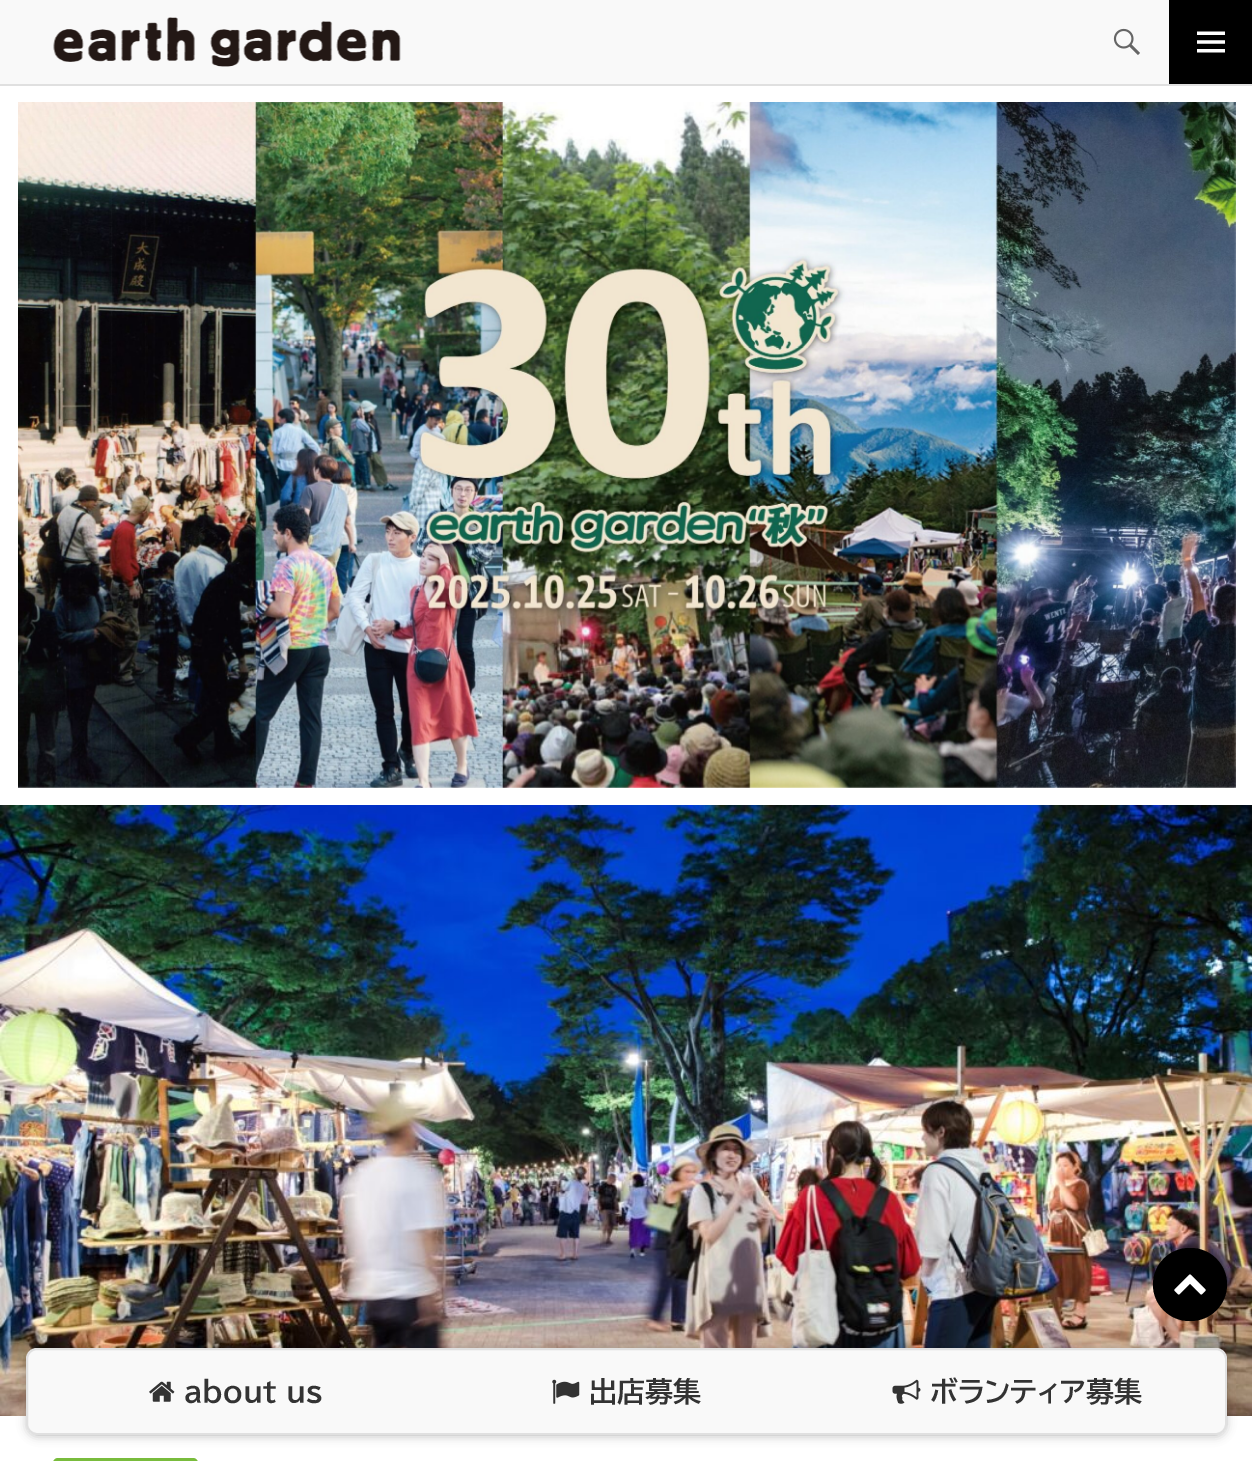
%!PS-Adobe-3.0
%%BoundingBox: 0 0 1252 1461
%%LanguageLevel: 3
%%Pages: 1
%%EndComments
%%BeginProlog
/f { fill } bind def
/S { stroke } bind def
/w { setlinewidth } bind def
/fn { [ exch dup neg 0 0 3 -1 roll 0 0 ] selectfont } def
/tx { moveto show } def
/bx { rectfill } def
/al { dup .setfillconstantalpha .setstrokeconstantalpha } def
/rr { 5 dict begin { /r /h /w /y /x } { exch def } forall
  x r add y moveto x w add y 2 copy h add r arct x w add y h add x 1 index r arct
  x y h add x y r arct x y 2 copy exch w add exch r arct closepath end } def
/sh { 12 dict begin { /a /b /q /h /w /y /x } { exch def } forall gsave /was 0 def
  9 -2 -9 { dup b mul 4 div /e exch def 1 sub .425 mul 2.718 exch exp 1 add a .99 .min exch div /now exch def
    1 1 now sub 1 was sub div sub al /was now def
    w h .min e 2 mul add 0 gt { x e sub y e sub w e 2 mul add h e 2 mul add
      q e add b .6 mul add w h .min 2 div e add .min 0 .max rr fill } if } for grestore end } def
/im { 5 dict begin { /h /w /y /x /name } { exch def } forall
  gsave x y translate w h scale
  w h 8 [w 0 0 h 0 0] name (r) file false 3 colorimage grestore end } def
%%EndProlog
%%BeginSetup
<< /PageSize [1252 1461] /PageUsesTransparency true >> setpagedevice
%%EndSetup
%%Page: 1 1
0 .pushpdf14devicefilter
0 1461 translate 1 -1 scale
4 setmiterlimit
1 setgray
0 0 1252 1461 bx
0.976 setgray
0 0 1169 84 bx
0.878 setgray
0 84 1252 2 bx
(image0.raw) 53 17 348 50 im
(image1.raw) 1113 28 27 27 im
0 setgray
1169 0 83 84 bx
(image2.raw) 1197 31 28 22 im
(image3.raw) 18 102 1218 686 im
(image4.raw) 0 805 1252 611 im
0.475 0.737 0.235 setrgbcolor
53 1458 145 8 5 rr f
0 setgray
1153 1248 74 73 36.5 rr f
0.1 al
2 w
1154 1249 72 71 35.5 rr S
1 al
(image5.raw) 1174 1274 32 21 im
26 1349 1201 88 11 4.5 0.2 sh
0.976 setgray
26 1348 1201 87 11 rr f
0.1 al
0 setgray
27 1349 1199 85 10 rr S
1 al
(image6.raw) 149 1381 26 21 im
/BIZUDPGothic-Bold 28 fn
0.2 setgray
(about us) 184 1402 tx
(image7.raw) 552 1379 28 25 im
(出店募集) 589 1402 tx
(image8.raw) 892 1379 29 25 im
(ボランティア募集) 930 1402 tx
.poppdf14devicefilter showpage
%%EOF
